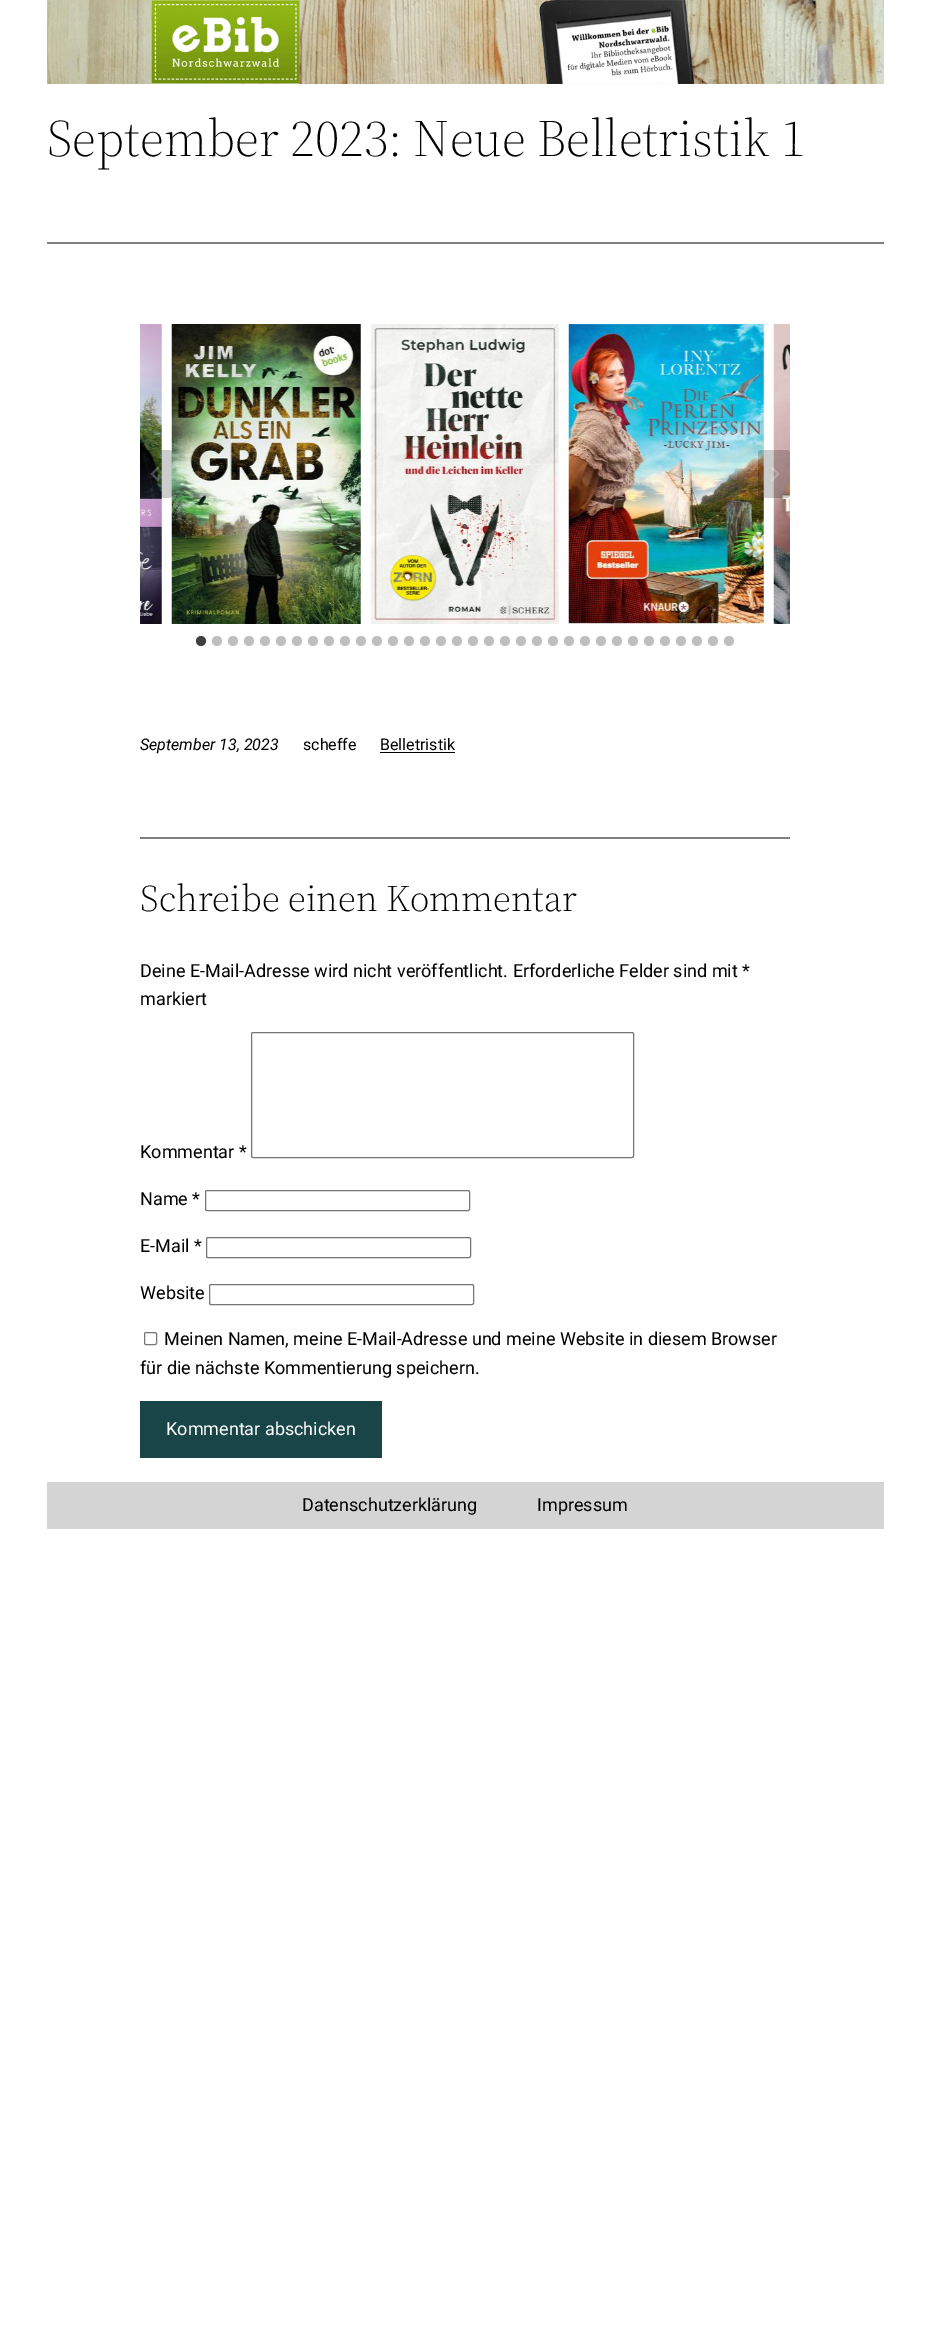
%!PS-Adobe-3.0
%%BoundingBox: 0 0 930 2333
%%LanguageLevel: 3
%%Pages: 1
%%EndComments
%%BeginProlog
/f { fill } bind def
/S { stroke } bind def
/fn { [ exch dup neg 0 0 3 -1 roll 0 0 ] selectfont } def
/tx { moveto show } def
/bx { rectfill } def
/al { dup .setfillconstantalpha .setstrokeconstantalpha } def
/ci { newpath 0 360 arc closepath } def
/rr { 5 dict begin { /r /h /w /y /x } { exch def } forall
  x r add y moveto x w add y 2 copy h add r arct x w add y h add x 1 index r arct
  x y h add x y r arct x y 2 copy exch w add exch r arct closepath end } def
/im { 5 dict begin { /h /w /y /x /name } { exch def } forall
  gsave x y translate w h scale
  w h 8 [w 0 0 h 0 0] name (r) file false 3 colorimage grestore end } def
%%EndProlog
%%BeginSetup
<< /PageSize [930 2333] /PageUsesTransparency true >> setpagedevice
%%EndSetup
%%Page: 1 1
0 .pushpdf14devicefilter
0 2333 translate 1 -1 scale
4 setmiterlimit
1 setgray
0 0 930 2333 bx
(image0.raw) 47 0 837 84 im
/SourceSerif4-Light 52 fn
0 setgray
(September 2023: Neue Belletristik 1) 47 156 tx
0.502 setgray
47 242 837 2 bx
(image1.raw) 140 324 22 300 im
(image2.raw) 171 324 190 300 im
(image3.raw) 370 324 189 300 im
(image4.raw) 568 324 196 300 im
(image5.raw) 773 324 17 300 im
0.2 al
0 setgray
140 450 32 48 3 rr f
1 al
(image6.raw) 150 466 10 16 im
0.2 al
758 450 32 48 3 rr f
1 al
(image7.raw) 771 467 9 14 im
0.251 setgray
201 641 5 ci f
0.749 setgray
217 641 5 ci f
233 641 5 ci f
249 641 5 ci f
265 641 5 ci f
281 641 5 ci f
297 641 5 ci f
313 641 5 ci f
329 641 5 ci f
345 641 5 ci f
361 641 5 ci f
377 641 5 ci f
393 641 5 ci f
409 641 5 ci f
425 641 5 ci f
441 641 5 ci f
457 641 5 ci f
473 641 5 ci f
489 641 5 ci f
505 641 5 ci f
521 641 5 ci f
537 641 5 ci f
553 641 5 ci f
569 641 5 ci f
585 641 5 ci f
601 641 5 ci f
617 641 5 ci f
633 641 5 ci f
649 641 5 ci f
665 641 5 ci f
681 641 5 ci f
697 641 5 ci f
713 641 5 ci f
729 641 5 ci f
/Roboto-Italic 16 fn
0 setgray
(September 13, 2023) 140 750 tx
/Roboto-Regular 16 fn
(scheffe) 303 750 tx
(Belletristik) 380 750 tx
380 752 75 1 bx
0.502 setgray
140 837 650 2 bx
/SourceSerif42-Light 37.25 fn
0 setgray
(Schreibe einen Kommentar) 140 911 tx
/Roboto-Regular 18 fn
(Deine E-Mail-Adresse wird nicht veröffentlicht. Erforderliche Felder sind mit *) 140 977 tx
(markiert) 140 1005 tx
(Kommentar *) 140 1158 tx
0.463 setgray
251.5 1032.5 382 125 1.5 rr S
0 setgray
(Name *) 140 1205 tx
0.463 setgray
205.5 1190.5 264 20 1.5 rr S
0 setgray
(E-Mail *) 140 1252 tx
0.463 setgray
206.5 1237.5 264 20 1.5 rr S
0 setgray
(Website) 140 1299 tx
0.463 setgray
209.5 1284.5 264 20 1.5 rr S
144.5 1332.5 12 12 1.5 rr S
0 setgray
(Meinen Namen, meine E-Mail-Adresse und meine Website in diesem Browser) 164 1345 tx
(für die nächste Kommentierung speichern.) 140 1374 tx
0.102 0.271 0.282 setrgbcolor
140 1401 242 57 bx
1 setgray
(Kommentar abschicken) 166 1435 tx
0.831 setgray
47 1482 837 47 bx
0 setgray
(Datenschutzerklärung) 302 1511 tx
(Impressum) 537 1511 tx
.poppdf14devicefilter showpage
%%EOF
